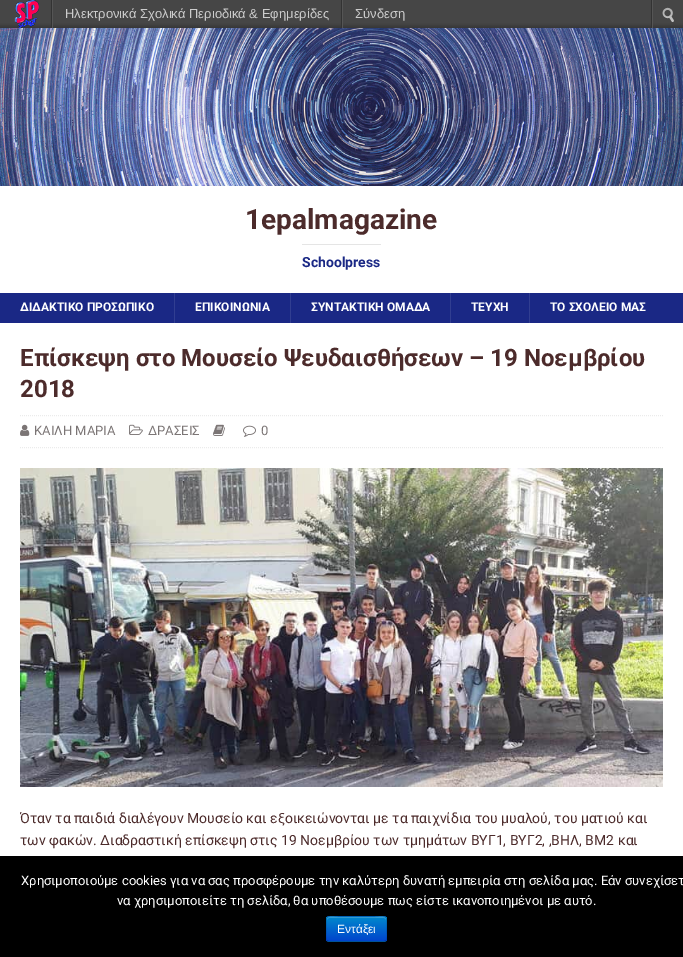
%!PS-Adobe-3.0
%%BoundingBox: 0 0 683 957
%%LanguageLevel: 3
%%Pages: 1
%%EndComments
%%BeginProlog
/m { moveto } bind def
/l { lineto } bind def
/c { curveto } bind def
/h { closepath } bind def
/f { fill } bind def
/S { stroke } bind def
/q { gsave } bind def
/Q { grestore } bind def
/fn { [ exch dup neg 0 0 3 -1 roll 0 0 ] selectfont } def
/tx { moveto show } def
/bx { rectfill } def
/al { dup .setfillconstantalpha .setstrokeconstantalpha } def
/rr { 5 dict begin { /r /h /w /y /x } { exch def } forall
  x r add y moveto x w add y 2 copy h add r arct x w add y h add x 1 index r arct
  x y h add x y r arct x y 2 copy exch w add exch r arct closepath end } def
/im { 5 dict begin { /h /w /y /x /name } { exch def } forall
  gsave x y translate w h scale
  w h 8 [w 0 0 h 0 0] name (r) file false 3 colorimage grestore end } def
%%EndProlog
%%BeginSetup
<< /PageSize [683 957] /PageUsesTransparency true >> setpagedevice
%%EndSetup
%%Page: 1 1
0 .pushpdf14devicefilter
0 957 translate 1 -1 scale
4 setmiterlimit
1 setgray
0 0 683 957 bx
q 0 0 m 651 0 l 651 28 l 0 28 l h clip newpath
<< /ShadingType 2 /ColorSpace /DeviceRGB /Coords [342 28 342 0] /Extend [true true] /Function << /FunctionType 3 /Domain [0 1] /Functions [<< /FunctionType 2 /Domain [0 1] /C0 [0.216 0.216 0.216] /C1 [0.275 0.275 0.275] /N 1 >> << /FunctionType 2 /Domain [0 1] /C0 [0.275 0.275 0.275] /C1 [0.275 0.275 0.275] /N 1 >>] /Bounds [0.18] /Encode [0 1 0 1] >> >> shfill Q
0.333 setgray
52 0 1 28 bx
0.2 setgray
51 0 1 28 bx
(image0.raw) 14 0 25 28 im
0.333 setgray
342 0 1 28 bx
0.2 setgray
341 0 1 28 bx
/LiberationSans-Regular 13 fn
0.8 setgray
(Ηλεκτρονικά Σχολικά Περιοδικά & Εφημερίδες) 65 18 tx
(Σύνδεση) 355 18 tx
q 653 0 m 683 0 l 683 28 l 653 28 l h clip newpath
<< /ShadingType 2 /ColorSpace /DeviceRGB /Coords [667 28 667 0] /Extend [true true] /Function << /FunctionType 3 /Domain [0 1] /Functions [<< /FunctionType 2 /Domain [0 1] /C0 [0.216 0.216 0.216] /C1 [0.275 0.275 0.275] /N 1 >> << /FunctionType 2 /Domain [0 1] /C0 [0.275 0.275 0.275] /C1 [0.275 0.275 0.275] /N 1 >>] /Bounds [0.18] /Encode [0 1 0 1] >> >> shfill Q
0.2 setgray
651 0 1 28 bx
0.333 setgray
652 0 1 28 bx
(image1.raw) 662 7 12 15 im
(image2.raw) 0 28 683 158 im
/Roboto-Bold 28 fn
0.298 0.169 0.169 setrgbcolor
(1epalmagazine) 245 229 tx
0.898 setgray
302 244 79 1 bx
/Roboto-Bold 14 fn
0.102 0.157 0.522 setrgbcolor
(Schoolpress) 302 267 tx
0 293 683 30 bx
/Roboto-Bold 12 fn
1 setgray
(ΔΙΔΑΚΤΙΚΟ ΠΡΟΣΩΠΙΚΟ) 20 311 tx
0.192 0.243 0.569 setrgbcolor
174 293 1 30 bx
1 setgray
(ΕΠΙΚΟΙΝΩΝΙΑ) 195 311 tx
0.192 0.243 0.569 setrgbcolor
290 293 1 30 bx
1 setgray
(ΣΥΝΤΑΚΤΙΚΗ ΟΜΑΔΑ) 311 311 tx
0.192 0.243 0.569 setrgbcolor
450 293 1 30 bx
1 setgray
(ΤΕΥΧΗ) 471 311 tx
0.192 0.243 0.569 setrgbcolor
529 293 1 30 bx
1 setgray
(ΤΟ ΣΧΟΛΕΙΟ ΜΑΣ) 550 311 tx
/Roboto-Bold 24 fn
0.298 0.169 0.169 setrgbcolor
(Επίσκεψη στο Μουσείο Ψευδαισθήσεων – 19 Νοεμβρίου) 20 366 tx
(2018) 20 397 tx
0.922 setgray
[1 1] 0 setdash
20 415.5 m 663 415.5 l S
20 447.5 m 663 447.5 l S
(image3.raw) 20 424 10 12 im
/Roboto-Regular 13 fn
0.482 0.459 0.459 setrgbcolor
(ΚΑΙΛΗ ΜΑΡΙΑ) 34 435 tx
(image4.raw) 129 424 14 11 im
(ΔΡΑΣΕΙΣ) 148 435 tx
(image5.raw) 213 424 12 12 im
(image6.raw) 243 425 13 12 im
(0) 261 435 tx
(image7.raw) 20 468 643 319 im
/Roboto-Regular 14 fn
0.298 0.169 0.169 setrgbcolor
(Όταν τα παιδιά διαλέγουν Μουσείο και εξοικειώνονται με τα παιχνίδια του μυαλού, του ματιού και) 20 823 tx
(των φακών. Διαδραστική επίσκεψη στις 19 Νοεμβρίου των τμημάτων ΒΥΓ1, ΒΥΓ2, ,ΒΗΛ, ΒΜ2 και) 20 845 tx
0 setgray
0 856 683 101 bx
/Roboto-Regular 13 fn
1 setgray
(Χρησιμοποιούμε cookies για να σας προσφέρουμε την καλύτερη δυνατή εμπειρία στη σελίδα μας. Εάν συνεχίσετ) 21 885 tx
(να χρησιμοποιείτε τη σελίδα, θα υποθέσουμε πως είστε ικανοποιημένοι με αυτό.) 117 905 tx
0 0.427 0.8 setrgbcolor
326 916 61 26 3 rr f
q
326 916 61 26 3 rr clip newpath
q 326 917 m 387 917 l 387 941 l 326 941 l h clip newpath
<< /ShadingType 2 /ColorSpace /DeviceRGB /Coords [357 917 357 941] /Extend [true true] /Function << /FunctionType 2 /Domain [0 1] /C0 [0 0.533 0.8] /C1 [0 0.267 0.8] /N 1 >> >> shfill Q
Q
0.2 0.624 0.839 setrgbcolor
329 918 m 384 918 l 385 918 386 919 386 920 c 386 915 379 917 375 917 c 338 917 l 334 917 327 915 327 920 c 327 919 328 918 329 918 c h f
0.25 al
0 setgray
[] 0 setdash
386 941 m 384 941.5 l 329 941.5 l 327 941 l S
0.1 al
327 941 m 325.5 939 326.5 931.5 326.5 929 c 326.5 915 324 916.5 338 916.5 c 375 916.5 l 389 916.5 386.5 915 386.5 929 c 386.5 931.5 387.5 939 386 941 c S
/LiberationSans-Regular 12 fn
1 al
1 setgray
(Εντάξει) 337 933 tx
.poppdf14devicefilter showpage
%%EOF
